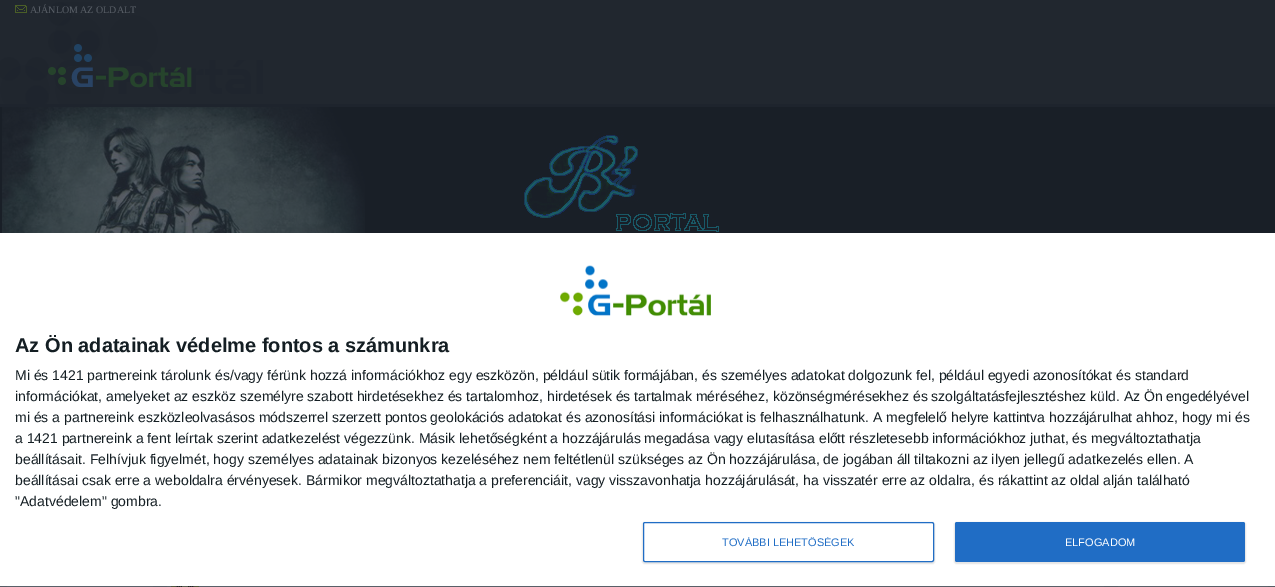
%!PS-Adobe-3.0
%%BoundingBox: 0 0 1275 587
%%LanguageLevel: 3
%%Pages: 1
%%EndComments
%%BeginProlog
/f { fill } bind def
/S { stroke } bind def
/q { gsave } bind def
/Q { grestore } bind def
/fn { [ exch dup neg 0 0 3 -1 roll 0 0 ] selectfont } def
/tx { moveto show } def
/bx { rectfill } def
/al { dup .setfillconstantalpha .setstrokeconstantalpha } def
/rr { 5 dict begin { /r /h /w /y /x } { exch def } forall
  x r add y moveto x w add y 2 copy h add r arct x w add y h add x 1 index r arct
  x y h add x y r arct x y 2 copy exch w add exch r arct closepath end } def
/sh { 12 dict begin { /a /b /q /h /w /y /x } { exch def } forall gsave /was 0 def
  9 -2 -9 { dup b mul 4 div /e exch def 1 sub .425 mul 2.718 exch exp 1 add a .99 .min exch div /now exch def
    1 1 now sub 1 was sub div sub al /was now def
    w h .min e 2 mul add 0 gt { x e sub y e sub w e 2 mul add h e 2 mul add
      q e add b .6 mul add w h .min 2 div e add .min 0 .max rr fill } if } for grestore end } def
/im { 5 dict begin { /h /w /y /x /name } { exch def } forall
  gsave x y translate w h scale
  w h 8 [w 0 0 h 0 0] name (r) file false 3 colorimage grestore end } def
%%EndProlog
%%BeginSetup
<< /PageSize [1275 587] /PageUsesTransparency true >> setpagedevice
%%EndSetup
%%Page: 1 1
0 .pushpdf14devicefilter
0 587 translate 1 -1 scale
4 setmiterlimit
0.333 0.357 0.388 setrgbcolor
0 0 1275 587 bx
0.129 0.153 0.184 setrgbcolor
0 0 1275 104 bx
0.118 0.141 0.176 setrgbcolor
0 104 1275 3 bx
(image0.raw) 0 2 263 102 im
(image1.raw) 15 5 12 8 im
/LiberationSerif-Regular 10 fn
0.349 0.373 0.404 setrgbcolor
(AJÁNLOM AZ OLDALT) 30 13 tx
0.098 0.122 0.153 setrgbcolor
0 107 1275 126 bx
(image2.raw) 2 107 718 126 im
0.349 0.373 0.404 setrgbcolor
7 586 146 1 bx
167 586 937 1 bx
(image3.raw) 171 586 28 1 im
1118 586 150 1 bx
1 setgray
0 233 1275 353 bx
(image4.raw) 560 265 151 52 im
/LiberationSans-Bold 20 fn
0.078 0.118 0.137 setrgbcolor
(Az Ön adatainak védelme fontos a számunkra) 15 352 tx
/LiberationSans-Regular 14 fn
(Mi és 1421 partnereink tárolunk és/vagy férünk hozzá információkhoz egy eszközön, például sütik formájában, és személyes adatokat dolgozunk fel, például egyedi azonosítókat és standard) 15 380 tx
(információkat, amelyeket az eszköz személyre szabott hirdetésekhez és tartalomhoz, hirdetések és tartalmak méréséhez, közönségmérésekhez és szolgáltatásfejlesztéshez küld. Az Ön engedélyével) 15 401 tx
(mi és a partnereink eszközleolvasásos módszerrel szerzett pontos geolokációs adatokat és azonosítási információkat is felhasználhatunk. A megfelelő helyre kattintva hozzájárulhat ahhoz, hogy mi és) 15 422 tx
(a 1421 partnereink a fent leírtak szerint adatkezelést végezzünk. Másik lehetőségként a hozzájárulás megadása vagy elutasítása előtt részletesebb információkhoz juthat, és megváltoztathatja) 15 443 tx
(beállításait. Felhívjuk figyelmét, hogy személyes adatainak bizonyos kezeléséhez nem feltétlenül szükséges az Ön hozzájárulása, de jogában áll tiltakozni az ilyen jellegű adatkezelés ellen. A) 15 464 tx
(beállításai csak erre a weboldalra érvényesek. Bármikor megváltoztathatja a preferenciáit, vagy visszavonhatja hozzájárulását, ha visszatér erre az oldalra, és rákattint az oldal alján található) 15 485 tx
("Adatvédelem" gombra.) 15 506 tx
0 setgray
642 522 293 42 3 0.5 0.1 sh
1 setgray
643.5 522.5 290 39 1.5 rr q f Q
0.125 0.427 0.773 setrgbcolor
S
q
722 537 133 11 rectclip
/LiberationSans-Regular 11 fn
(TOVÁBBI LEHETŐSÉGEK) 722 546 tx
Q
0 setgray
954 522 292 42 3 0.5 0.1 sh
0.125 0.427 0.773 setrgbcolor
955 522 290 40 2 rr f
/LiberationSans-Regular 11 fn
1 setgray
(ELFOGADOM) 1065 546 tx
.poppdf14devicefilter showpage
%%EOF
